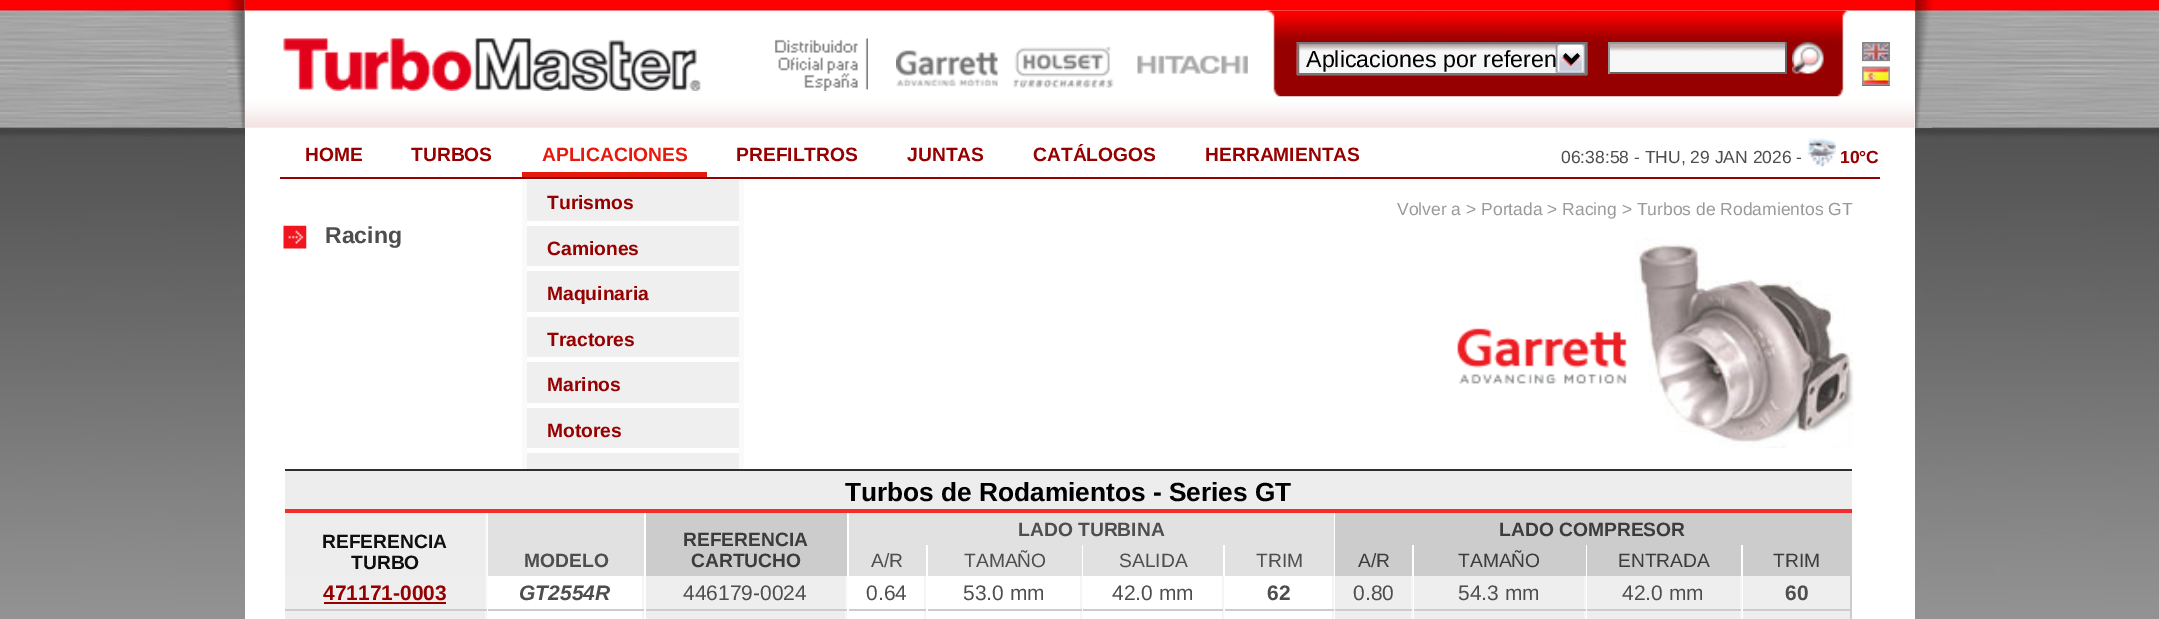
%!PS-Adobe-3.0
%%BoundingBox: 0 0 2159 619
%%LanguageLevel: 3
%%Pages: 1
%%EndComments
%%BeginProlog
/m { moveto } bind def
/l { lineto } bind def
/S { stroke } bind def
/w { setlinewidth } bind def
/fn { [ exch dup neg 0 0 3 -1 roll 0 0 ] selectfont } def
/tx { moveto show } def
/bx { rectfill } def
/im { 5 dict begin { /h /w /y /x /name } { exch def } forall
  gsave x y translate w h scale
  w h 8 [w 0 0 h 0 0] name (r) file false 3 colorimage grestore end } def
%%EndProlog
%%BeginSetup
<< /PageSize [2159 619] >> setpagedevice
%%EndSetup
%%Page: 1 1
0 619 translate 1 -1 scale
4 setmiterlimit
1 setgray
0 0 2159 619 bx
(image0.raw) 0 0 2159 619 im
(image1.raw) 227 0 1705 128 im
245 11 1670 608 bx
1 0 0 setrgbcolor
245 0 1670 11 bx
(image2.raw) 245 10 1670 118 im
(image3.raw) 283 38 418 53 im
(image4.raw) 775 38 93 53 im
(image5.raw) 896 50 102 37 im
(image6.raw) 1013 46 101 42 im
(image7.raw) 1137 55 111 19 im
(image8.raw) 1265 10 584 87 im
(image9.raw) 1296 42 292 34 im
0.463 setgray
2 w
1298 43 288 31 rectstroke
0 setgray
3.5 w
1564.5 55 m 1571.5 62 l 1578.5 55 l S
/LiberationSans-Regular 23.25 fn
(Aplicaciones por referen) 1306 67 tx
(image10.raw) 1610 44 175 28 im
0.6 setgray
1608 42 179 2 bx
0.4 setgray
1785 42 2 32 bx
1608 72 179 2 bx
0.6 setgray
1608 42 2 32 bx
(image11.raw) 1792 42 32 32 im
0.4 setgray
1862 42 28 19 bx
(image12.raw) 1862 42 28 20 im
(image13.raw) 1862 66 28 20 im
0.592 0 0 setrgbcolor
280 177 1600 2 bx
/LiberationSans-Bold 19.25 fn
(HOME) 305 161 tx
(TURBOS) 411 161 tx
0.902 0.098 0.051 setrgbcolor
522 172 185 5 bx
(APLICACIONES) 542 161 tx
0.937 setgray
527 180 212 41 bx
0.98 setgray
739 180 5 289 bx
522 180 5 289 bx
0.592 0 0 setrgbcolor
(Turismos) 547 209 tx
0.937 setgray
527 226 212 40 bx
0.592 0 0 setrgbcolor
(Camiones) 547 255 tx
0.937 setgray
527 271 212 41 bx
0.592 0 0 setrgbcolor
(Maquinaria) 547 300 tx
0.937 setgray
527 317 212 40 bx
0.592 0 0 setrgbcolor
(Tractores) 547 346 tx
0.937 setgray
527 362 212 41 bx
0.592 0 0 setrgbcolor
(Marinos) 547 391 tx
0.937 setgray
527 408 212 40 bx
0.592 0 0 setrgbcolor
(Motores) 547 437 tx
0.937 setgray
527 453 212 16 bx
0.592 0 0 setrgbcolor
(PREFILTROS) 736 161 tx
(JUNTAS) 907 161 tx
(CATÁLOGOS) 1033 161 tx
(HERRAMIENTAS) 1205 161 tx
/LiberationSans-Regular 17.5 fn
0.306 setgray
(06:38:58 - THU, 29 JAN 2026 -) 1561 163 tx
(image14.raw) 1807 138 29 29 im
/LiberationSans-Bold 17.5 fn
0.592 0 0 setrgbcolor
(10°C) 1840 163 tx
/LiberationSans-Regular 17.5 fn
0.6 setgray
(Volver a > Portada > Racing > Turbos de Rodamientos GT) 1397 215 tx
(image15.raw) 1457 328 170 56 im
(image16.raw) 1635 238 219 210 im
(image17.raw) 283 225 24 24 im
/LiberationSans-Bold 23 fn
0.306 setgray
(Racing) 325 243 tx
0.929 setgray
285 471 1567 38 bx
0.184 setgray
285 469 1567 2 bx
0.957 0.173 0.173 setrgbcolor
285 509 1567 4 bx
/LiberationSans-Bold 26.25 fn
0 setgray
(Turbos de Rodamientos - Series GT) 845 501 tx
0.882 setgray
849 513 485 32 bx
/LiberationSans-Bold 19.25 fn
0.306 setgray
(LADO TURBINA) 1018 536 tx
0.8 setgray
1335 513 517 32 bx
0.235 setgray
(LADO COMPRESOR) 1499 536 tx
0.929 setgray
285 513 200 63 bx
0.961 setgray
485 513 2 98 bx
0.059 setgray
(REFERENCIA) 322 548 tx
(TURBO) 351 569 tx
0.882 setgray
488 513 156 63 bx
0.306 setgray
(MODELO) 524 567 tx
0.8 setgray
646 513 201 63 bx
0.235 setgray
(REFERENCIA) 683 546 tx
(CARTUCHO) 691 567 tx
0.882 setgray
849 545 77 31 bx
/LiberationSans-Regular 19.25 fn
0.306 setgray
(A/R) 871 567 tx
0.882 setgray
928 545 154 31 bx
0.306 setgray
(TAMAÑO) 964 567 tx
0.882 setgray
1083 545 140 31 bx
0.306 setgray
(SALIDA) 1119 567 tx
0.882 setgray
1225 545 109 31 bx
0.306 setgray
(TRIM) 1256 567 tx
0.8 setgray
1335 545 77 31 bx
0.235 setgray
(A/R) 1358 567 tx
0.8 setgray
1414 545 172 31 bx
0.235 setgray
(TAMAÑO) 1458 567 tx
0.8 setgray
1587 545 154 31 bx
0.235 setgray
(ENTRADA) 1618 567 tx
0.8 setgray
1743 545 109 31 bx
0.235 setgray
(TRIM) 1773 567 tx
0.933 setgray
285 576 200 33 bx
0.8 setgray
285 609 202 2 bx
/LiberationSans-Bold 21 fn
0.592 0 0 setrgbcolor
(471171-0003) 323 600 tx
324 602 122 2 bx
0.961 setgray
642 576 2 43 bx
0.8 setgray
488 609 156 2 bx
/LiberationSans-BoldItalic 21 fn
0.306 setgray
(GT2554R) 519 600 tx
0.933 setgray
646 576 199 33 bx
0.961 setgray
845 576 2 35 bx
0.8 setgray
646 609 201 2 bx
/LiberationSans-Regular 21 fn
0.306 setgray
(446179-0024) 683 600 tx
0.961 setgray
924 576 2 43 bx
0.8 setgray
849 609 77 2 bx
0.306 setgray
(0.64) 866 600 tx
0.961 setgray
1080 576 2 43 bx
0.8 setgray
928 609 154 2 bx
0.306 setgray
(53.0 mm) 963 600 tx
0.961 setgray
1222 576 2 43 bx
0.8 setgray
1083 609 140 2 bx
0.306 setgray
(42.0 mm) 1112 600 tx
0.961 setgray
1332 576 2 43 bx
0.8 setgray
1225 609 109 2 bx
/LiberationSans-Bold 21 fn
0.306 setgray
(62) 1267 600 tx
0.933 setgray
1335 576 76 33 bx
0.961 setgray
1411 576 2 35 bx
0.8 setgray
1335 609 77 2 bx
/LiberationSans-Regular 21 fn
0.306 setgray
(0.80) 1353 600 tx
0.933 setgray
1414 576 170 33 bx
0.961 setgray
1584 576 2 35 bx
0.8 setgray
1414 609 172 2 bx
0.306 setgray
(54.3 mm) 1458 600 tx
0.933 setgray
1587 576 153 33 bx
0.961 setgray
1740 576 2 35 bx
0.8 setgray
1587 609 154 2 bx
0.306 setgray
(42.0 mm) 1622 600 tx
0.933 setgray
1743 576 107 33 bx
0.8 setgray
1850 576 2 35 bx
1743 609 109 2 bx
/LiberationSans-Bold 21 fn
0.306 setgray
(60) 1785 600 tx
0.933 setgray
285 611 202 8 bx
0.961 setgray
485 611 2 8 bx
0.933 setgray
646 611 201 8 bx
0.961 setgray
845 611 2 8 bx
0.933 setgray
1335 611 77 8 bx
0.961 setgray
1411 611 2 8 bx
0.933 setgray
1414 611 172 8 bx
0.961 setgray
1584 611 2 8 bx
0.933 setgray
1587 611 154 8 bx
0.961 setgray
1740 611 2 8 bx
0.933 setgray
1743 611 109 8 bx
0.8 setgray
1850 611 2 8 bx
showpage
%%EOF
